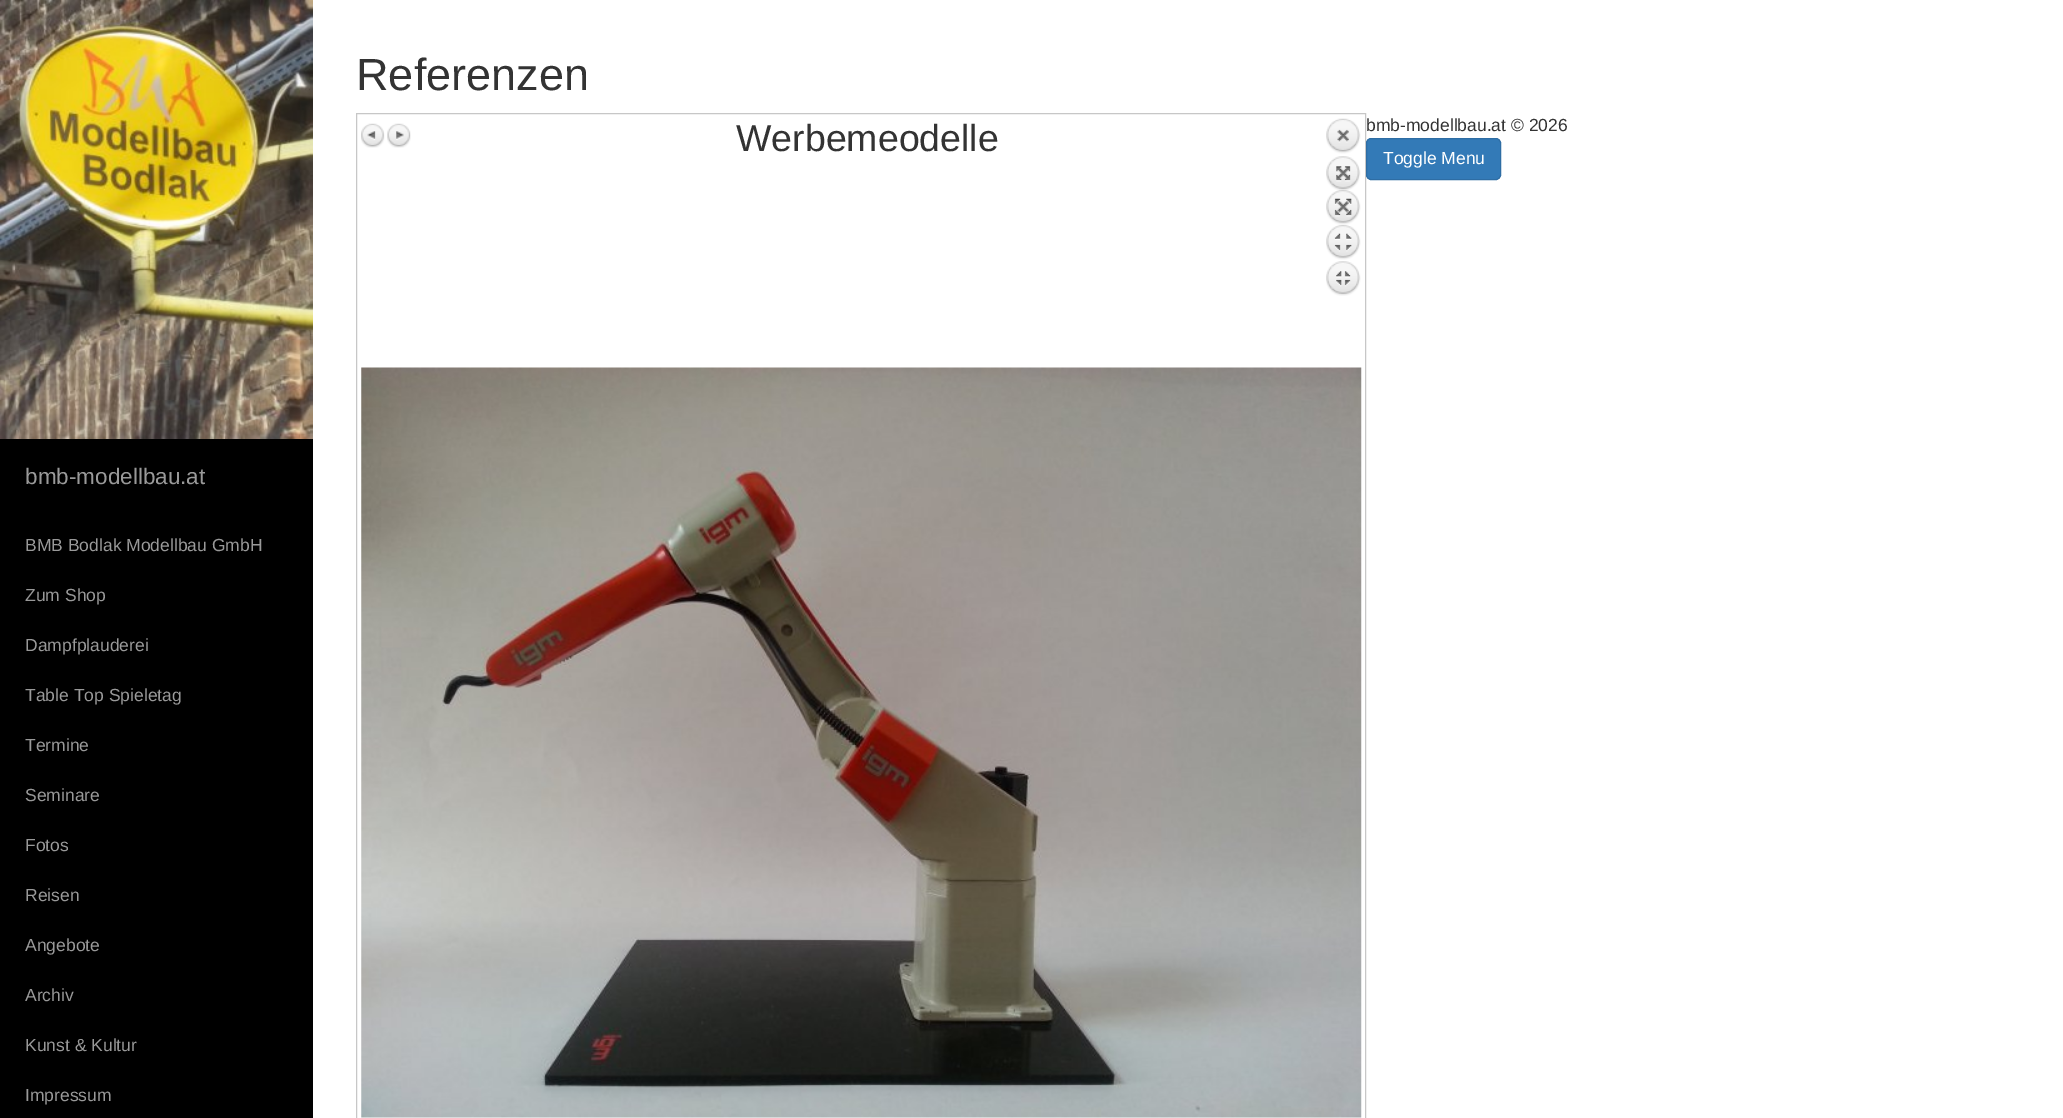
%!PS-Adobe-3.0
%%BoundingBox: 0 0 2063 1118
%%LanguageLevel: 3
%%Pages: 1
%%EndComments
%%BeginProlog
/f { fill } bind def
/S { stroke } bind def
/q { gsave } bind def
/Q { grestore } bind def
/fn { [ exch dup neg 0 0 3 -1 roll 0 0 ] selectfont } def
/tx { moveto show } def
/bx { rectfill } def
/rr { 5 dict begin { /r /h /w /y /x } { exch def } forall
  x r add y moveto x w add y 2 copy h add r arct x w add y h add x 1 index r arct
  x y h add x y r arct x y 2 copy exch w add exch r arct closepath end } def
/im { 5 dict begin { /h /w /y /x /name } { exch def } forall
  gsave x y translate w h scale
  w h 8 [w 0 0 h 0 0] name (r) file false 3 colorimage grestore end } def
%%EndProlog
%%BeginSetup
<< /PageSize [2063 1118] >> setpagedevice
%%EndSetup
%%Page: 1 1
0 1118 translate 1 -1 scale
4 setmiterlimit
1 setgray
0 0 2063 1118 bx
/LiberationSans-Regular 45 fn
0.2 setgray
(Referenzen) 356 90 tx
0.78 setgray
356.5 113.5 1009 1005 rectstroke
(image0.raw) 361 123 24 25 im
(image1.raw) 387 123 24 25 im
/LiberationSans-Regular 37.5 fn
0.2 setgray
(Werbemeodelle) 736 151 tx
(image2.raw) 1326 118 35 178 im
(image3.raw) 361 367 1001 751 im
/LiberationSans-Regular 17.5 fn
(bmb-modellbau.at © 2026) 1366 131 tx
0.2 0.478 0.718 setrgbcolor
1366.5 138.5 134 41 4.5 rr q f Q
0.18 0.427 0.643 setrgbcolor
S
1 setgray
(Toggle Menu) 1383 164 tx
0 setgray
0 439 313 679 bx
(image4.raw) 0 0 313 439 im
/LiberationSans-Regular 22.5 fn
0.6 setgray
(bmb-modellbau.at) 25 484 tx
/LiberationSans-Regular 17.5 fn
(BMB Bodlak Modellbau GmbH) 25 551 tx
(Zum Shop) 25 601 tx
(Dampfplauderei) 25 651 tx
(Table Top Spieletag) 25 701 tx
(Termine) 25 751 tx
(Seminare) 25 801 tx
(Fotos) 25 851 tx
(Reisen) 25 901 tx
(Angebote) 25 951 tx
(Archiv) 25 1001 tx
(Kunst & Kultur) 25 1051 tx
(Impressum) 25 1101 tx
showpage
%%EOF
